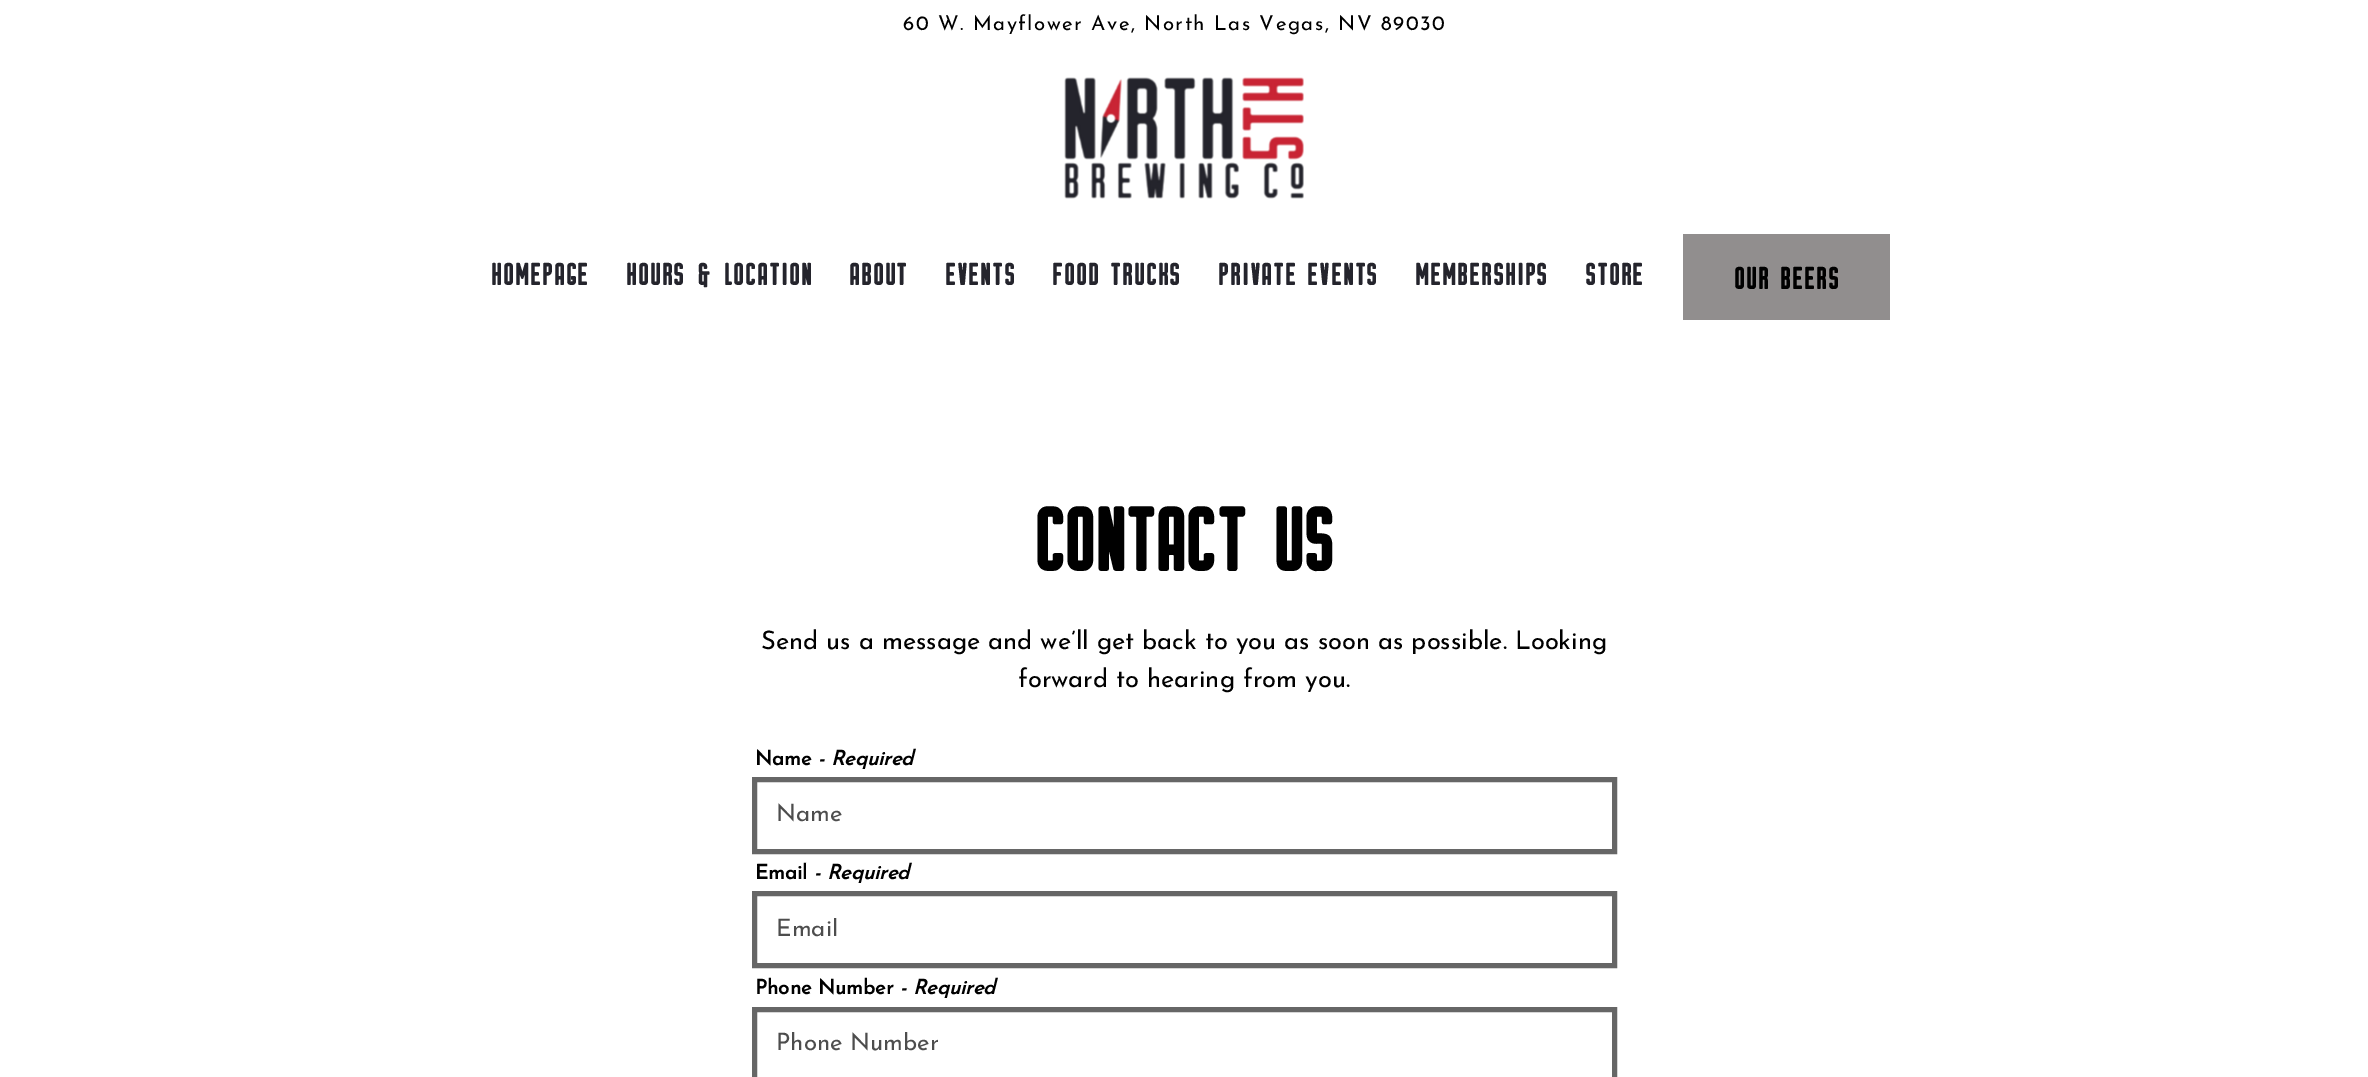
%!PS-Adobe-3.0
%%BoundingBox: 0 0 2368 1077
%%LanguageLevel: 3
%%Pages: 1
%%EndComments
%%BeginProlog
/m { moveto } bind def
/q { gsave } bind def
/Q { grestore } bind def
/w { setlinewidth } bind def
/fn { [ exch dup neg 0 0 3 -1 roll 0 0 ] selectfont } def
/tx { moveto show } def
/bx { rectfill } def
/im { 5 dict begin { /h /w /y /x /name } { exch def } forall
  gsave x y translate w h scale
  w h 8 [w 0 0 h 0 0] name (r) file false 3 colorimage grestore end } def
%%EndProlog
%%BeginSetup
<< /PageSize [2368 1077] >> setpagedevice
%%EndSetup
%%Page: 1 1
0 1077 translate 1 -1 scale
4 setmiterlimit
1 setgray
0 0 2368 1077 bx
/JosefinSans-Thin 20.4 fn
0 setgray
903 30 m 1.5 0 (60 W. Mayflower Ave, North Las Vegas, NV 89030) ashow
(image0.raw) 1064 77 240 122 im
/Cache-Bold 30.5 fn
0.141 0.141 0.173 setrgbcolor
491 285 m 1.5 0 (HOMEPAGE) ashow
626 285 m 1.5 0 (HOURS & LOCATION) ashow
849 285 m 1.5 0 (ABOUT) ashow
945 285 m 1.5 0 (EVENTS) ashow
1052 285 m 1.5 0 (FOOD TRUCKS) ashow
1218 285 m 1.5 0 (PRIVATE EVENTS) ashow
1415 285 m 1.5 0 (MEMBERSHIPS) ashow
1585 285 m 1.5 0 (STORE) ashow
0.569 0.557 0.557 setrgbcolor
1683 234 207 86 bx
0 setgray
1734 289 m 1.5 0 (OUR BEERS) ashow
/Cache-Bold 89 fn
(CONTACT US) 1034 571 tx
/JosefinSans-Thin 25.5 fn
(Send us a message and we’ll get back to you as soon as possible. Looking) 761 649 tx
(forward to hearing from you.) 1018 687 tx
/JosefinSans-Bold 20.4 fn
(Name) 755 765 tx
/JosefinSans-BoldItalic 20.4 fn
(- Required) 818 765 tx
0.4 setgray
5 w
754.5 779.5 860 72 rectstroke
/JosefinSans-Thin 24 fn
0.302 setgray
(Name) 776 821 tx
/JosefinSans-Bold 20.4 fn
0 setgray
(Email) 755 879 tx
/JosefinSans-BoldItalic 20.4 fn
(- Required) 814 879 tx
0.4 setgray
754.5 893.5 860 72 rectstroke
q
776 918 817 24 rectclip
/JosefinSans-Thin 24 fn
0.302 setgray
(Email) 776 936 tx
Q
/JosefinSans-Bold 20.4 fn
0 setgray
(Phone Number) 755 994 tx
/JosefinSans-BoldItalic 20.4 fn
(- Required) 900 994 tx
0.4 setgray
754.5 1009.5 860 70 rectstroke
q
776 1032 817 24 rectclip
/JosefinSans-Thin 24 fn
0.302 setgray
(Phone Number) 776 1050 tx
Q
showpage
%%EOF
